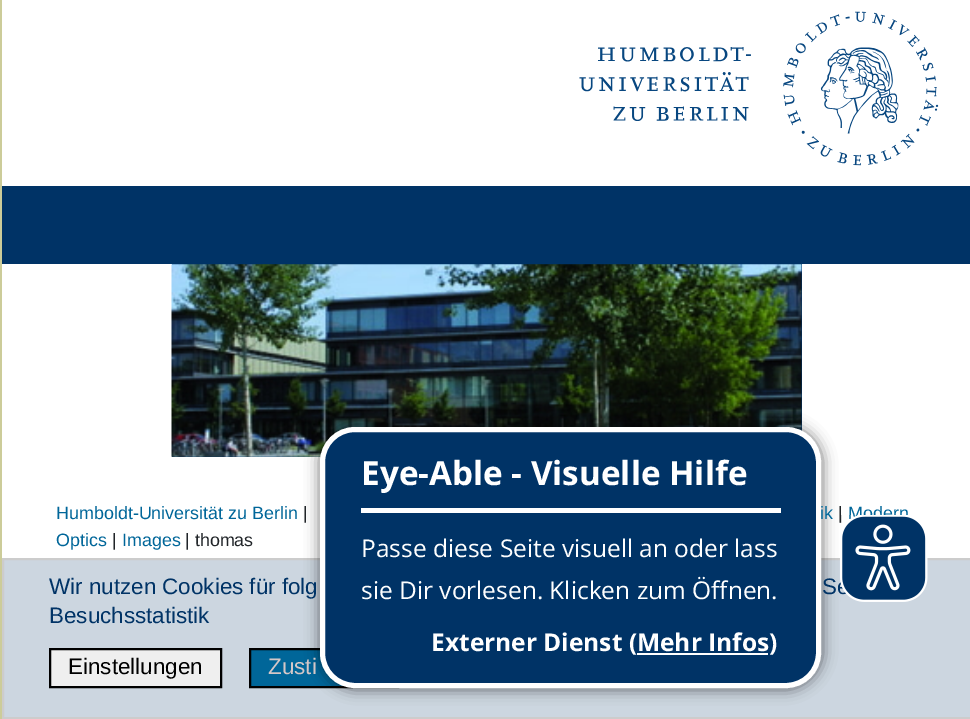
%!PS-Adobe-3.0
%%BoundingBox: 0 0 970 719
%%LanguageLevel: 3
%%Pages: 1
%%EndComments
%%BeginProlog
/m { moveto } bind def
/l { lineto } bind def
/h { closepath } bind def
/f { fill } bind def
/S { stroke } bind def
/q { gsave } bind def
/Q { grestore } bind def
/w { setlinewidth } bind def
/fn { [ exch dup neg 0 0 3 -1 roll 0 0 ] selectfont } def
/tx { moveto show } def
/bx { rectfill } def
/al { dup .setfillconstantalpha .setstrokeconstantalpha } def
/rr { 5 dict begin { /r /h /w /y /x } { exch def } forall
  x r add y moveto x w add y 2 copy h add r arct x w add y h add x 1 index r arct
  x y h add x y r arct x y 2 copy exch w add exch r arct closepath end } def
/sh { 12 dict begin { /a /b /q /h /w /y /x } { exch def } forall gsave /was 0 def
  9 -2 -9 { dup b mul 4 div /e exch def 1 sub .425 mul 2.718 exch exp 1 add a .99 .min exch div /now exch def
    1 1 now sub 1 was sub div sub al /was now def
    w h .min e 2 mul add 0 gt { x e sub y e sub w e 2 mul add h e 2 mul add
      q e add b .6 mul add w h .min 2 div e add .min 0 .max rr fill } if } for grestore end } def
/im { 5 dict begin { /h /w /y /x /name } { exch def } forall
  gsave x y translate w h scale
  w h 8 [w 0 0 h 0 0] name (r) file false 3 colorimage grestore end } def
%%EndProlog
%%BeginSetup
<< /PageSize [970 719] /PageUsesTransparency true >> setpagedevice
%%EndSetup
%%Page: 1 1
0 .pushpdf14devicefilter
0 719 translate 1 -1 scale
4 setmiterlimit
1 setgray
0 0 970 719 bx
0 0.2 0.4 setrgbcolor
172 264 630 193 bx
(image2.raw) 171 264 631 193 im
0.8 0.839 0.878 setrgbcolor
3 559 m 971 559 l 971 718 l 3 718 l h q f Q
0.8 setgray
2 w
S
0 0.4 0.6 setrgbcolor
251 650 93 36 bx
0 setgray
250 649 148 38 rectstroke
319 425 504 265 37 7 0.5 sh
0 0.2 0.4 setrgbcolor
322.5 429.5 496 256 32.5 rr q f Q
1 setgray
5 w
S
361 508 420 5 bx
/OpenSans-Bold 33.25 fn
(Eye-Able - Visuelle Hilfe) 361 485 tx
/OpenSans-Regular 24.5 fn
(Passe diese Seite visuell an oder lass) 361 557 tx
(sie Dir vorlesen. Klicken zum Öffnen.) 361 599 tx
/OpenSans-Bold 24.5 fn
(Externer Dienst \(Mehr Infos\)) 431 651 tx
637 653 131 2 bx
/LiberationSans-Regular 17.9 fn
0.129 0.145 0.161 setrgbcolor
(|) 838 519 tx
0 0.4 0.6 setrgbcolor
(Modern) 848 519 tx
/LiberationSans-Regular 22.4 fn
0 0.2 0.4 setrgbcolor
(Se) 822 594 tx
(image0.raw) 840 515 88 87 im
(image1.raw) 579 11 360 155 im
2 186 968 78 bx
0.8 0.8 0.6 setrgbcolor
0 0 2 719 bx
/LiberationSans-Regular 17.9 fn
0 0.4 0.6 setrgbcolor
(Humboldt-Universität zu Berlin) 56 519 tx
0.129 0.145 0.161 setrgbcolor
(|) 303 519 tx
0 0.4 0.6 setrgbcolor
(ik) 820 519 tx
(Optics) 56 546 tx
0.129 0.145 0.161 setrgbcolor
(|) 112 546 tx
0 0.4 0.6 setrgbcolor
(Images) 122 546 tx
0.129 0.145 0.161 setrgbcolor
(| thomas) 185 546 tx
/LiberationSans-Regular 22.4 fn
0 0.2 0.4 setrgbcolor
(Wir nutzen Cookies für folg) 49 594 tx
(Besuchsstatistik) 49 623 tx
0.937 setgray
50 649 m 221 649 l 221 687 l 50 687 l h q f Q
0 setgray
2 w
S
(Einstellungen) 68 674 tx
0.835 0.78 0.78 setrgbcolor
(Zusti) 268 674 tx
.poppdf14devicefilter showpage
%%EOF
